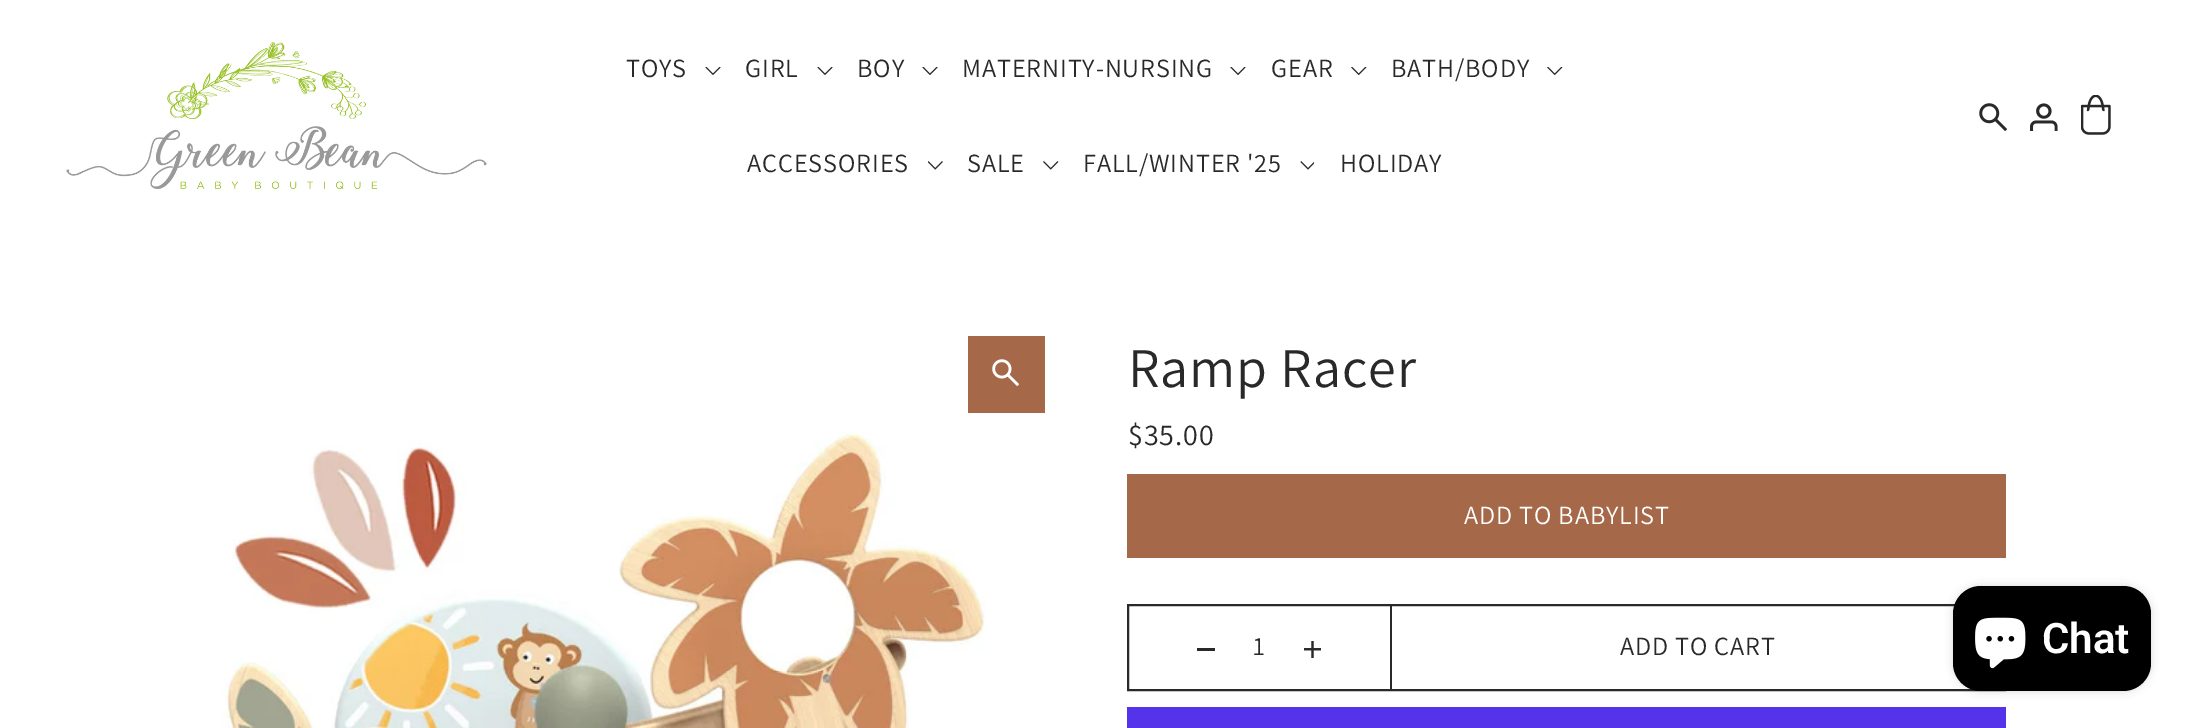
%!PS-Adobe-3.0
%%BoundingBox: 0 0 2189 728
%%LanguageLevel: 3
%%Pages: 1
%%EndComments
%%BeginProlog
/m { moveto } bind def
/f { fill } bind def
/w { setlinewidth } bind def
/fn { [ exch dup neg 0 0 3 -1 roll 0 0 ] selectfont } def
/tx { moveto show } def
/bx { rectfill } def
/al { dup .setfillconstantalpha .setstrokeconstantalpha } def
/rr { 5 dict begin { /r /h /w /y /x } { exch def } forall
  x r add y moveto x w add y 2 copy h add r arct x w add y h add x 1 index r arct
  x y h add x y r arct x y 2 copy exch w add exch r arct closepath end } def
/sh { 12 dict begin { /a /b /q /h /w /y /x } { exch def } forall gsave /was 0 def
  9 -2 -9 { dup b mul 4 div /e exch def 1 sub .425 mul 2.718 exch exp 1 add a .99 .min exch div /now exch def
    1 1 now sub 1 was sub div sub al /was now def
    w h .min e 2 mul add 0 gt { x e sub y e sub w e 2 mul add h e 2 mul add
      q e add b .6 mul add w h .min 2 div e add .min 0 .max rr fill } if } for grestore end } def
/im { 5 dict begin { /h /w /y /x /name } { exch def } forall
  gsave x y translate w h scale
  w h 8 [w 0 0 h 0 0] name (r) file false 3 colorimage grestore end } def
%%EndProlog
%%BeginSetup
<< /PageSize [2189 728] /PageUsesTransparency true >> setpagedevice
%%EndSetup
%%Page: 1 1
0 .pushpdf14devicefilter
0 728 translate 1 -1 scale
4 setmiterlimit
1 setgray
0 0 2189 728 bx
(image0.raw) 66 42 421 147 im
/Assistant-Regular 26.25 fn
0.161 setgray
626 77 m 0.9 0 (TOYS) ashow
(image1.raw) 705 67 16 8 im
745 77 m 0.9 0 (GIRL) ashow
(image1.raw) 817 67 16 8 im
857 77 m 0.9 0 (BOY) ashow
(image1.raw) 922 67 16 8 im
962 77 m 0.9 0 (MATERNITY-NURSING) ashow
(image1.raw) 1230 67 16 8 im
1271 77 m 0.9 0 (GEAR) ashow
(image2.raw) 1351 67 16 8 im
1391 77 m 0.9 0 (BATH/BODY) ashow
(image2.raw) 1547 67 16 8 im
747 172 m 0.9 0 (ACCESSORIES) ashow
(image3.raw) 928 161 15 9 im
967 172 m 0.9 0 (SALE) ashow
(image4.raw) 1043 161 16 9 im
1083 172 m 0.9 0 (FALL/WINTER '25) ashow
(image5.raw) 1300 161 14 9 im
1340 172 m 0.9 0 (HOLIDAY) ashow
(image6.raw) 1979 103 28 28 im
(image7.raw) 2030 103 28 28 im
(image8.raw) 2081 95 30 40 im
0.647 0.412 0.286 setrgbcolor
968 336 77 77 bx
(image9.raw) 992 359 27 28 im
(image10.raw) 221 432 764 296 im
/Assistant-Regular 56 fn
0.161 setgray
1128 387 m 0.9 0 (Ramp Racer) ashow
/Assistant-Regular 30 fn
1128 445 m 0.9 0 ($35.00) ashow
0.647 0.412 0.286 setrgbcolor
1127 474 879 84 bx
/Assistant-Regular 26.25 fn
1 setgray
1464 524 m 0.9 0 (ADD TO BABYLIST) ashow
0.161 setgray
2 w
1128 605 877 85 rectstroke
1390 606 2 84 bx
1197 648 18 3 bx
1253 655 m 0.9 0 (1) ashow
(image11.raw) 1304 641 17 17 im
1620 655 m 0.9 0 (ADD TO CART) ashow
0.329 0.2 0.922 setrgbcolor
1127 707 879 21 bx
0 setgray
1953 586 198 105 28 4.5 0.15 sh
1953 586 198 105 28 rr f
(image12.raw) 1975 617 51 52 im
/Roboto-SemiBold 42 fn
1 setgray
(Chat) 2042 653 tx
.poppdf14devicefilter showpage
%%EOF
